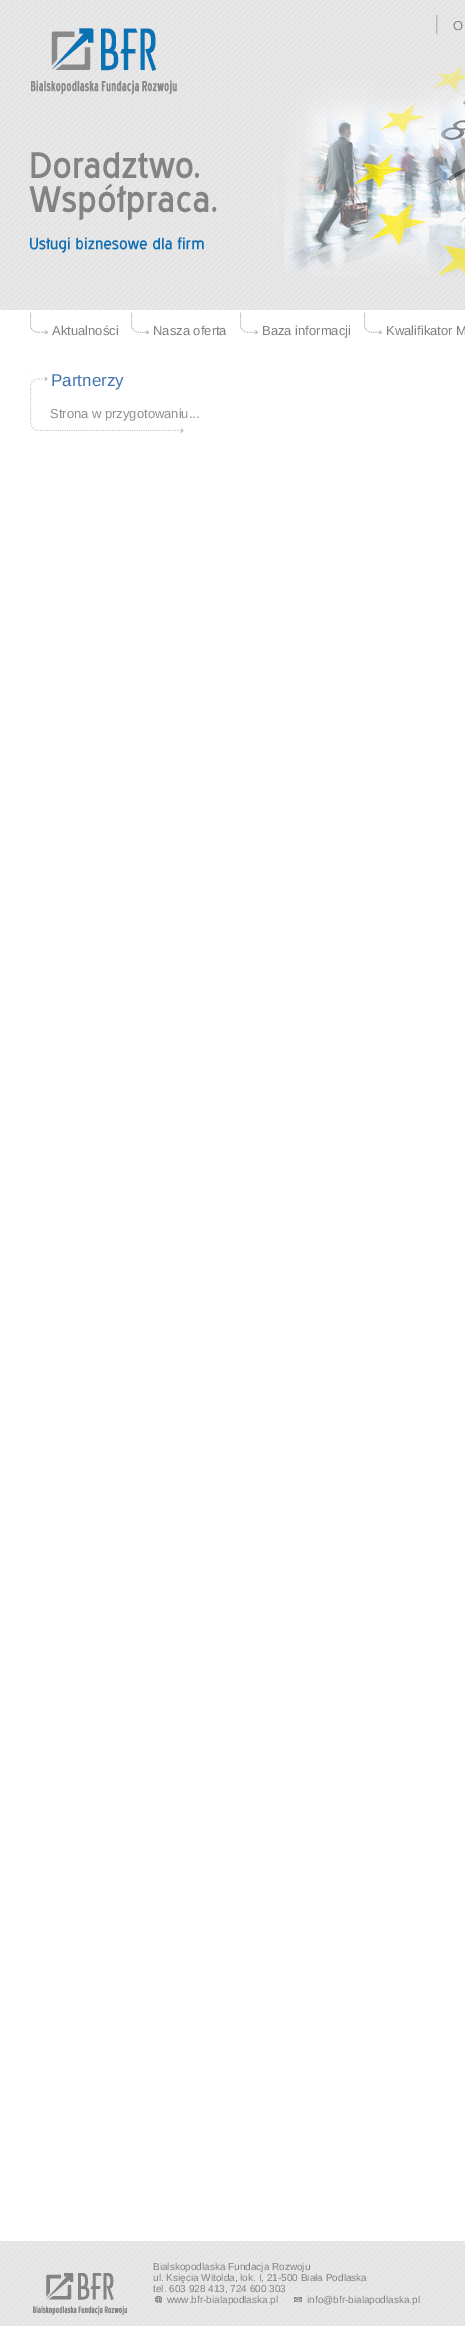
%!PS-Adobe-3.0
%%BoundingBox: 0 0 465 2326
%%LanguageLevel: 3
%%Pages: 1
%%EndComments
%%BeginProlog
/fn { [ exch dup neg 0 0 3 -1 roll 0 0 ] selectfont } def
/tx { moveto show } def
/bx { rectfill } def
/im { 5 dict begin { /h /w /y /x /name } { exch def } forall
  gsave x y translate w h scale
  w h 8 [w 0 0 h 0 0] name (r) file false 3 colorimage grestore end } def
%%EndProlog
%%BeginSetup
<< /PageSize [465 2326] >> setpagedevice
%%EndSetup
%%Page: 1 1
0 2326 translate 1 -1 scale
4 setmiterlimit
1 setgray
0 0 465 2326 bx
(image0.raw) 278 50 187 260 im
(image1.raw) 0 0 278 102 im
(image2.raw) 0 102 278 208 im
(image3.raw) 278 0 187 50 im
(image4.raw) 436 15 2 19 im
/LiberationSans-Regular 13 fn
0.51 0.506 0.506 setrgbcolor
(O) 453 30 tx
(image5.raw) 284 66 181 211 im
(image6.raw) 30 312 18 22 im
(Aktualności) 52 335 tx
(image6.raw) 131 312 18 22 im
(Nasza oferta) 153 335 tx
(image6.raw) 240 312 18 22 im
(Baza informacji) 262 335 tx
(image6.raw) 364 312 18 22 im
(Kwalifikator M) 386 335 tx
(image7.raw) 30 371 2 49 im
(image8.raw) 30 372 18 18 im
/LiberationSans-Regular 17 fn
0.259 0.443 0.694 setrgbcolor
(Partnerzy) 51 386 tx
/LiberationSans-Regular 13 fn
0.569 0.565 0.565 setrgbcolor
(Strona w przygotowaniu...) 50 418 tx
(image9.raw) 30 421 154 12 im
(image10.raw) 0 2241 465 85 im
(image11.raw) 33 2273 94 42 im
/LiberationSans-Regular 10 fn
0.51 0.506 0.506 setrgbcolor
(Bialskopodlaska Fundacja Rozwoju) 153 2270 tx
(ul. Księcia Witolda, lok. I, 21-500 Biała Podlaska) 153 2281 tx
(tel. 603 928 413, 724 600 303) 153 2292 tx
(image12.raw) 155 2296 7 7 im
(www.bfr-bialapodlaska.pl) 167 2303 tx
(image13.raw) 294 2297 8 5 im
(info@bfr-bialapodlaska.pl) 307 2303 tx
showpage
%%EOF
